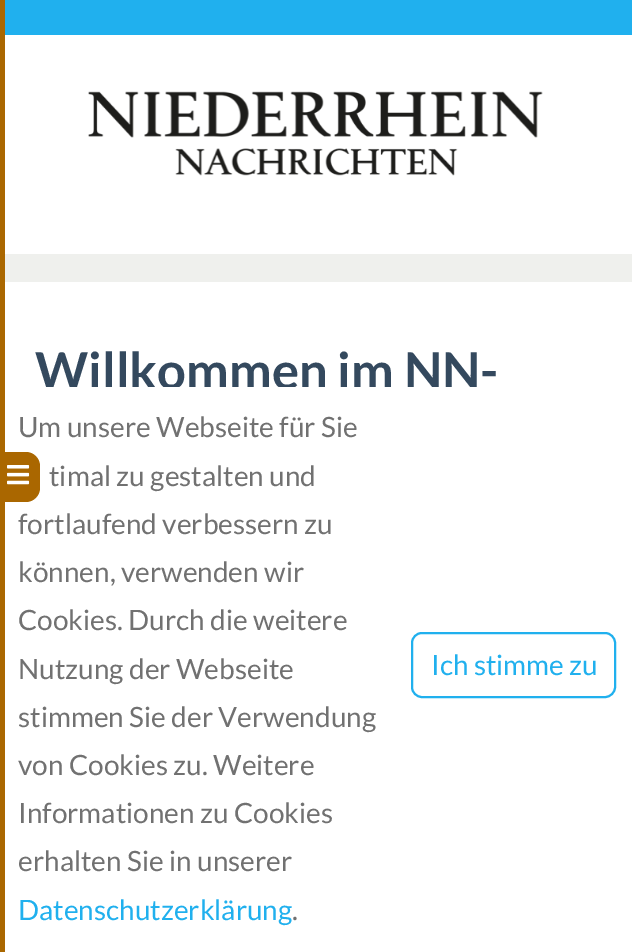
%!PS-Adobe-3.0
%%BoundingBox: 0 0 632 952
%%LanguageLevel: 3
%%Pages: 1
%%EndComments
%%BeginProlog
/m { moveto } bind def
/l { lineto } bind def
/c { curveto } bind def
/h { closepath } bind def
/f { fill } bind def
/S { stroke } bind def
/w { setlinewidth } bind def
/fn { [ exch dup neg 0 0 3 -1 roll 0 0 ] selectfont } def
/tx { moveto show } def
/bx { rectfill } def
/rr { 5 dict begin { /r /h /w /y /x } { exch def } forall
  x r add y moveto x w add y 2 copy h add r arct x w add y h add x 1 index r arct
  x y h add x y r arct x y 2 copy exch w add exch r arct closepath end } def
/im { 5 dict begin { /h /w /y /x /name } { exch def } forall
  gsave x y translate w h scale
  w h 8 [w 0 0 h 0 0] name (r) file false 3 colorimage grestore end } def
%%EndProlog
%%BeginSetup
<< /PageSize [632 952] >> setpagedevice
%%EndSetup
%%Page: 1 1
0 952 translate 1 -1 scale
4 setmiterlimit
0.937 0.941 0.929 setrgbcolor
0 0 632 952 bx
0.125 0.69 0.933 setrgbcolor
5 0 627 35 bx
1 setgray
5 35 627 219 bx
(image0.raw) 88 91 455 85 im
5 282 627 105 bx
/Lato-Bold 50.75 fn
0.204 0.286 0.369 setrgbcolor
(Willkommen im NN-) 35 389 tx
1 setgray
5 387 627 565 bx
0.667 0.404 0 setrgbcolor
0 452 m 26 452 l 33.5 452 40 458.5 40 466 c 40 488 l 40 495.5 33.5 502 26 502 c 0 502 l h f
0 0 5 952 bx
(image1.raw) 7 465 23 20 im
/Lato-Regular 28 fn
0.443 setgray
(Um unsere Webseite für Sie) 18 437 tx
(timal zu gestalten und) 49 486 tx
(fortlaufend verbessern zu) 18 534 tx
(können, verwenden wir) 18 582 tx
(Cookies. Durch die weitere) 18 630 tx
(Nutzung der Webseite) 18 679 tx
(stimmen Sie der Verwendung) 18 727 tx
(von Cookies zu. Weitere) 18 775 tx
(Informationen zu Cookies) 18 823 tx
(erhalten Sie in unserer) 18 871 tx
0.125 0.69 0.933 setrgbcolor
(Datenschutzerklärung) 18 920 tx
0.443 setgray
(.) 292 920 tx
0.125 0.69 0.933 setrgbcolor
2 w
412 633 203 64 10 rr S
(Ich stimme zu) 431 675 tx
showpage
%%EOF
